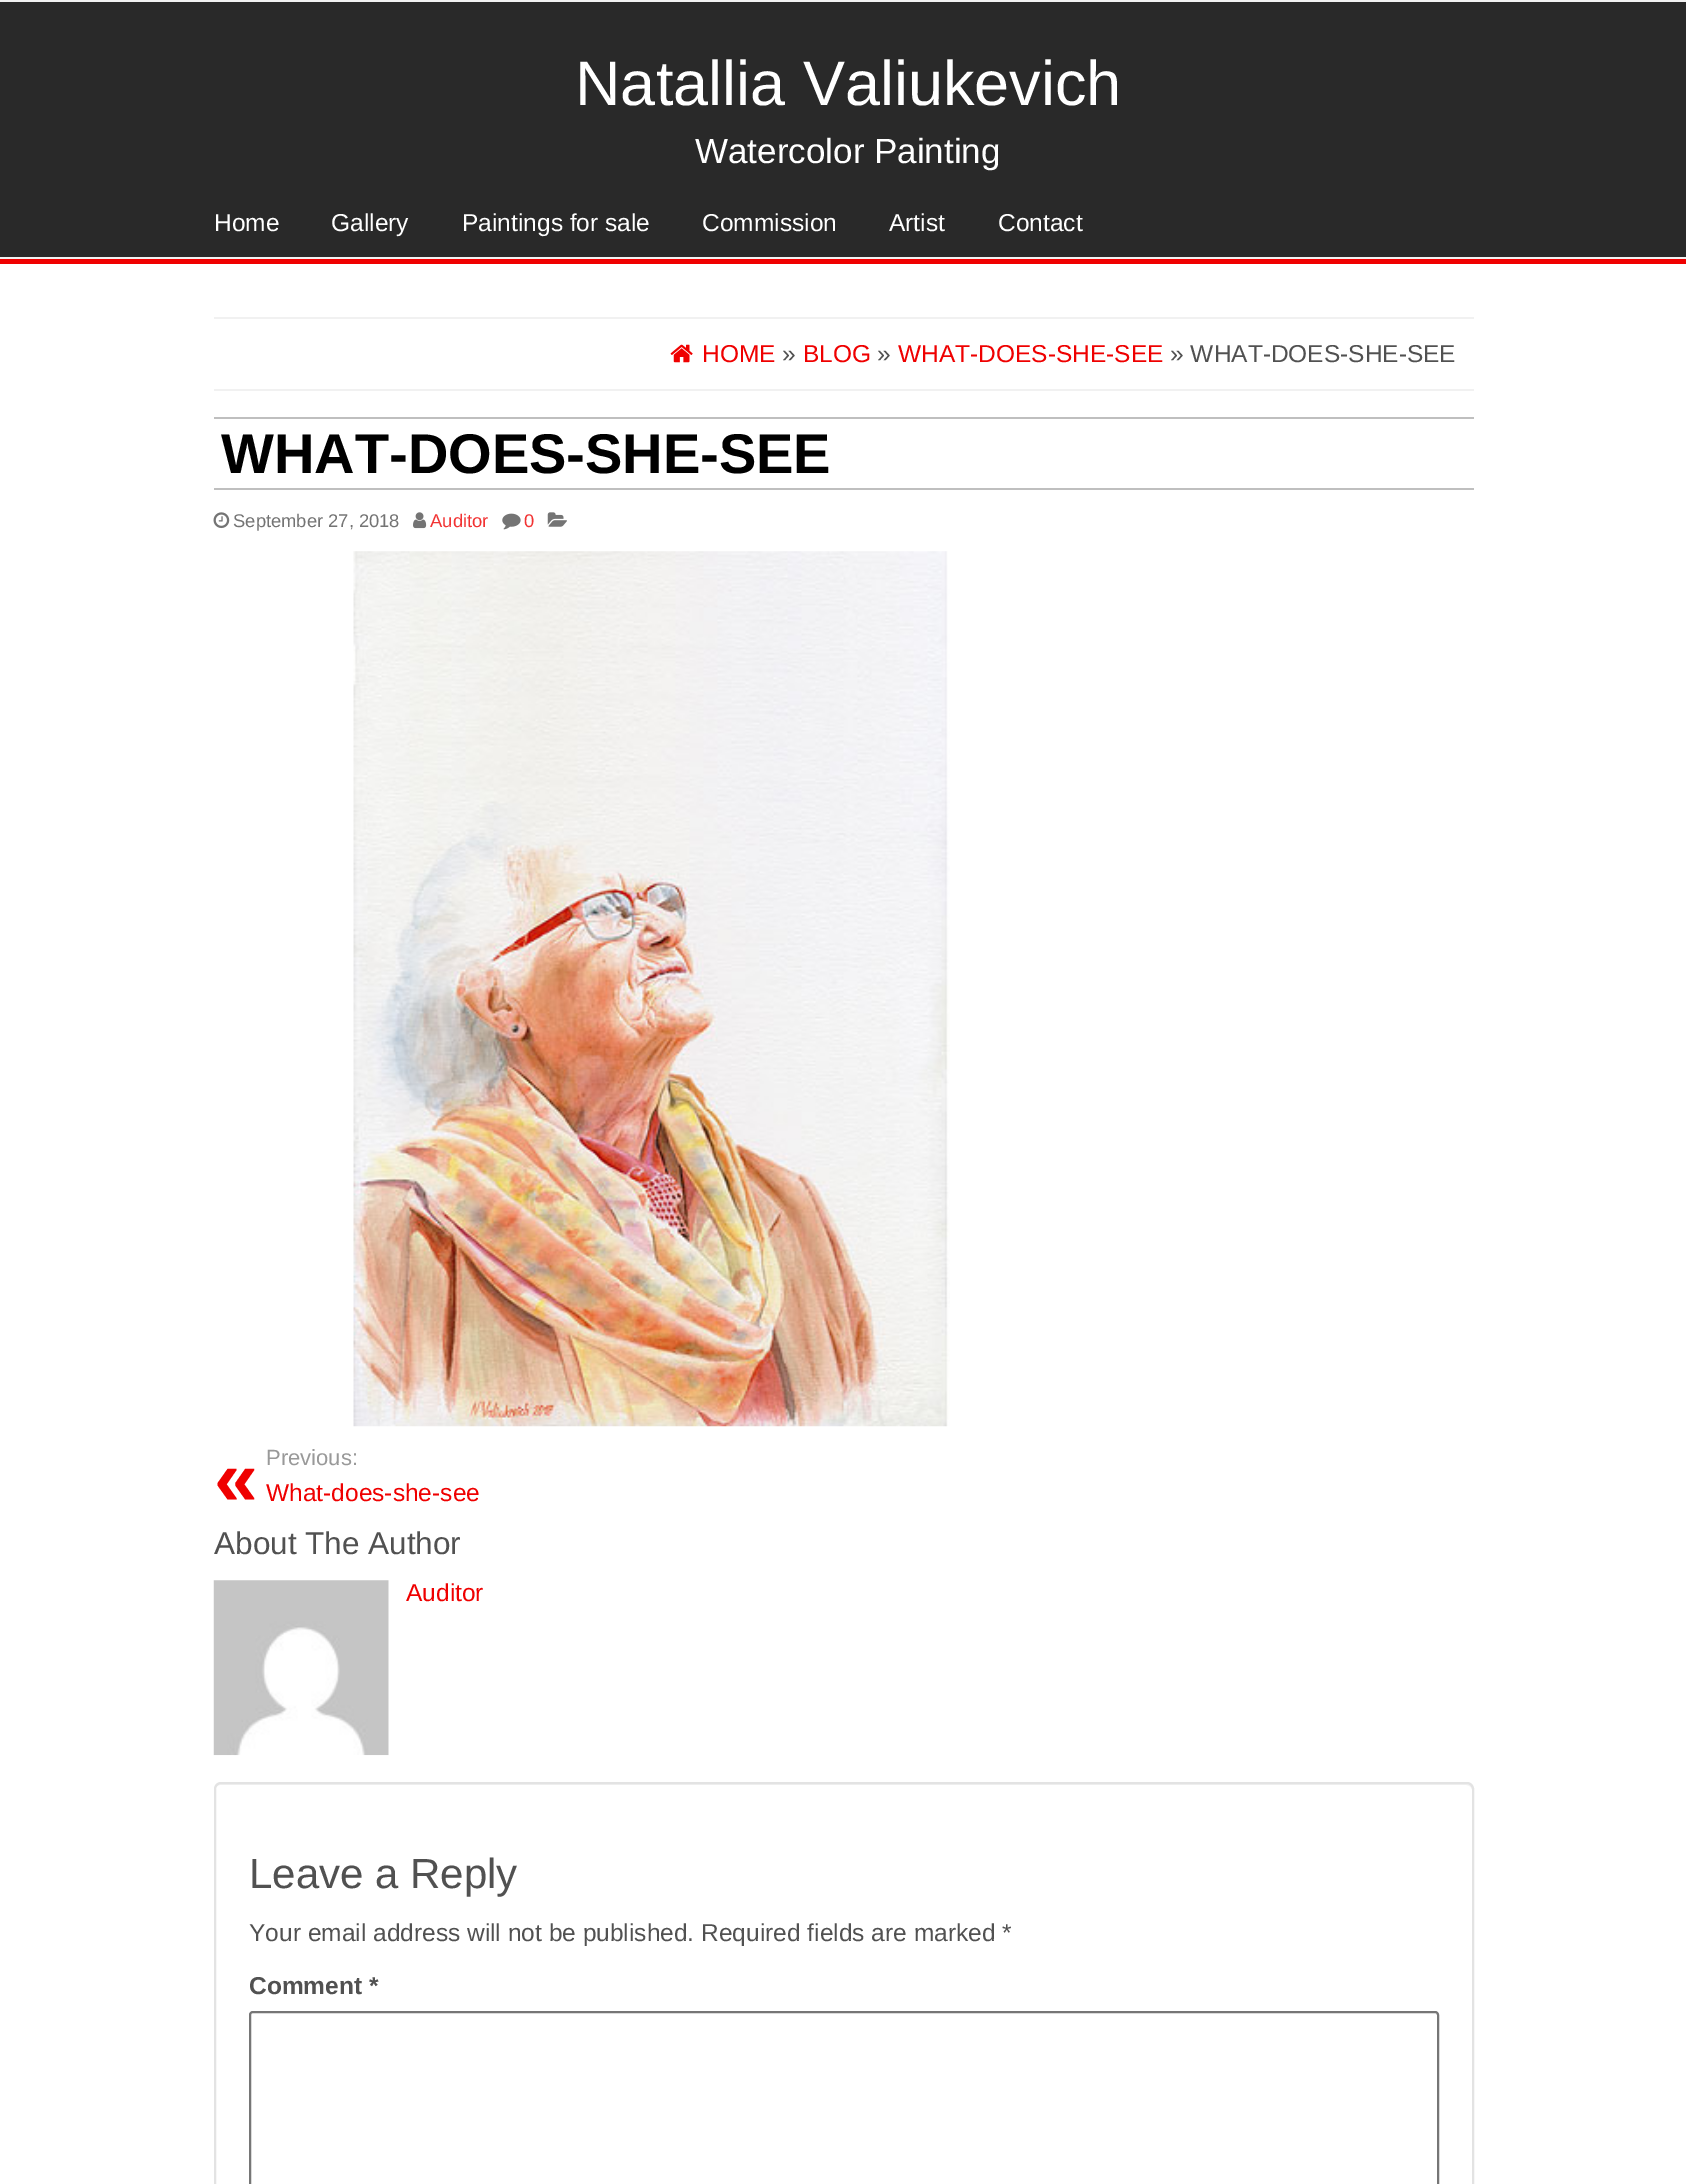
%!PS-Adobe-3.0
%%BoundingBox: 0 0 1686 2184
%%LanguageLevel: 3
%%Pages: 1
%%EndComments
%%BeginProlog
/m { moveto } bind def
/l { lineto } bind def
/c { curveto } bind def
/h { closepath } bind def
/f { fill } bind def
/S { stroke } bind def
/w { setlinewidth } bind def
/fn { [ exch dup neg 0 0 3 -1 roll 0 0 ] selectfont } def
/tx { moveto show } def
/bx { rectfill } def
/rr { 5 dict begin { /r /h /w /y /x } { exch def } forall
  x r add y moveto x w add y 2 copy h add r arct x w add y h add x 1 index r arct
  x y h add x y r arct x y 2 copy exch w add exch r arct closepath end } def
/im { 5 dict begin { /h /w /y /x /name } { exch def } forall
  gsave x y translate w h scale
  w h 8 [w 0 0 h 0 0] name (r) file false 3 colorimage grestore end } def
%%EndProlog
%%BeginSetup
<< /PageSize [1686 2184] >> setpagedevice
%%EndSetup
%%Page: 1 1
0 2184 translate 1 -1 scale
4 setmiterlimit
1 setgray
0 0 1686 2184 bx
0.937 0 0 setrgbcolor
0 259 1686 5 bx
0.945 setgray
0 0 1686 2 bx
0.161 setgray
0 2 1686 255 bx
0.945 setgray
0 257 1686 2 bx
/LiberationSans-Regular 63 fn
1 setgray
(Natallia Valiukevich) 575 105 tx
/LiberationSans-Regular 35 fn
(Watercolor Painting) 695 163 tx
/LiberationSans-Regular 24.5 fn
(Home) 214 231 tx
(Gallery) 331 231 tx
(Paintings for sale) 462 231 tx
(Commission) 702 231 tx
(Artist) 889 231 tx
(Contact) 998 231 tx
0.945 setgray
214 317 1260 2 bx
214 389 1260 2 bx
(image0.raw) 670 344 23 19 im
0.937 0 0 setrgbcolor
(HOME) 702 362 tx
0.318 setgray
(») 782 362 tx
0.937 0 0 setrgbcolor
(BLOG) 803 362 tx
0.318 setgray
(») 877 362 tx
0.937 0 0 setrgbcolor
(WHAT-DOES-SHE-SEE) 898 362 tx
0.318 setgray
(» WHAT-DOES-SHE-SEE) 1170 362 tx
0.749 setgray
214 417 1260 2 bx
214 488 1260 2 bx
/LiberationSans-Bold 56 fn
0 setgray
(WHAT-DOES-SHE-SEE) 221 473 tx
(image1.raw) 213 512 17 17 im
/LiberationSans-Regular 18.4 fn
0.455 setgray
(September 27, 2018) 233 527 tx
(image2.raw) 413 512 14 17 im
0.949 0.2 0.2 setrgbcolor
(Auditor) 430 527 tx
(image3.raw) 502 513 19 17 im
(0) 524 527 tx
(image4.raw) 547 512 20 15 im
(image5.raw) 353 551 597 876 im
/LiberationSans-Regular 22 fn
0.6 setgray
(Previous:) 266 1465 tx
/LiberationSans-Bold 79 fn
0.937 0 0 setrgbcolor
(«) 214 1505 tx
/LiberationSans-Regular 24.5 fn
(What-does-she-see) 266 1501 tx
/LiberationSans-Regular 31.5 fn
0.318 setgray
(About The Author) 214 1554 tx
(image6.raw) 213 1580 176 176 im
/LiberationSans-Regular 24.5 fn
0.937 0 0 setrgbcolor
(Auditor) 406 1601 tx
0.949 setgray
220 1785 m 1466 1785 l 1469 1785 1472 1787 1472 1790 c 1472 1788 l 1472 1785 1470 1783 1467 1783 c 220 1783 l 217 1783 215 1785 215 1788 c 215 1790 l 215 1787 218 1785 220 1785 c h f
0.89 setgray
2 w
215 1783 1258 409 6 rr S
/LiberationSans-Regular 42 fn
0.318 setgray
(Leave a Reply) 249 1888 tx
/LiberationSans-Regular 24.5 fn
(Your email address will not be published. Required fields are marked *) 249 1941 tx
/LiberationSans-Bold 24.5 fn
(Comment *) 249 1994 tx
0.463 setgray
250 2012 1188 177 3 rr S
showpage
%%EOF
